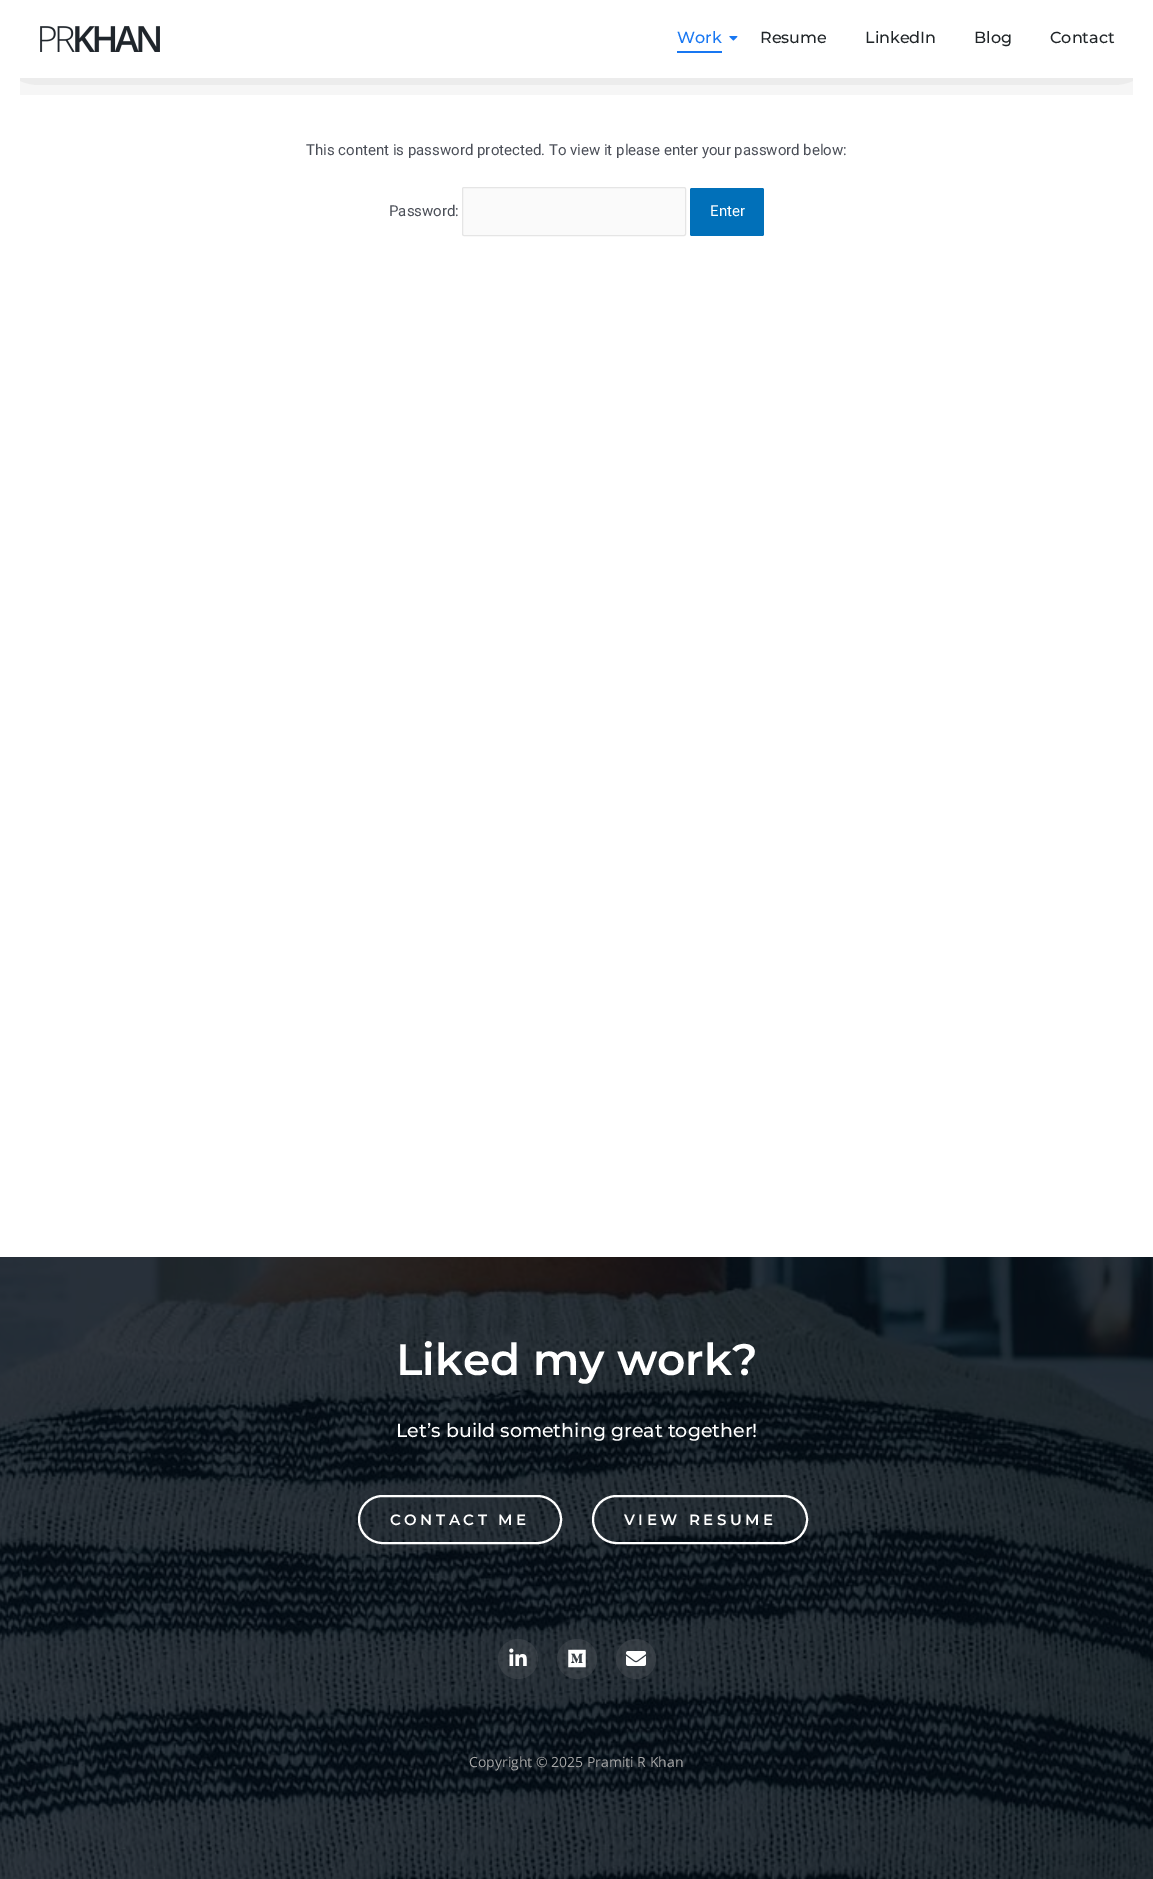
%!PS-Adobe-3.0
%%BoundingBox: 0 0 1153 1879
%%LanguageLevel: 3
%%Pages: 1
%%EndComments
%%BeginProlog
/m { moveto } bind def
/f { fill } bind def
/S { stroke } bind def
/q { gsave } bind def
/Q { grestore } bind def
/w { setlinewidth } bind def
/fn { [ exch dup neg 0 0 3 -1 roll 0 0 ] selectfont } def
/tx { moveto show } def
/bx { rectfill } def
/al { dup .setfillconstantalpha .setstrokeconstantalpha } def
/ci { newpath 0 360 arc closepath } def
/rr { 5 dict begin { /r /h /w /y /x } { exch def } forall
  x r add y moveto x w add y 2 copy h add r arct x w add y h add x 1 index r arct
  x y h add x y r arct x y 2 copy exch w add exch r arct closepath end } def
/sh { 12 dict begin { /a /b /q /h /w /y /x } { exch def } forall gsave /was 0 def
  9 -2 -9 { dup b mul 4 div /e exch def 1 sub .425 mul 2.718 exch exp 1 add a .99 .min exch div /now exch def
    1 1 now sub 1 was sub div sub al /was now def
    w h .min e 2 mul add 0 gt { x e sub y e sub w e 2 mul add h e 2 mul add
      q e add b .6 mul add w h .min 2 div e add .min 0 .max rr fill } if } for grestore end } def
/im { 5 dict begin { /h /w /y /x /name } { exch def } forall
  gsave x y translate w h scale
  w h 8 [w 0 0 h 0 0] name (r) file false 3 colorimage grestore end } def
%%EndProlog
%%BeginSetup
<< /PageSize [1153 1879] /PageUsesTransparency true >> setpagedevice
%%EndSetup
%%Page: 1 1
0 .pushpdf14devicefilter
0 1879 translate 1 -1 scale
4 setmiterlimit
1 setgray
0 0 1153 1879 bx
q
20 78 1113 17 rectclip
0 setgray
28 28 1097 22 0 28 0.44 sh
Q
(image0.raw) 40 26 120 26 im
/Montserrat-Medium 16 fn
0.094 0.467 0.949 setrgbcolor
(Work) 677 43 tx
(image1.raw) 729 36 9 5 im
677 51 45 2 bx
0.125 0.145 0.157 setrgbcolor
(Resume) 760 43 tx
(LinkedIn) 865 43 tx
(Blog) 974 43 tx
(Contact) 1050 43 tx
/Roboto-Regular 15 fn
0.294 0.31 0.345 setrgbcolor
(This content is password protected. To view it please enter your password below:) 306 155 tx
(Password:) 389 216 tx
0.98 setgray
462.5 187.5 223 48 1.5 rr q f Q
0.898 setgray
S
0.004 0.439 0.725 setrgbcolor
690 188 74 48 2 rr f
1 setgray
(Enter) 710 216 tx
(image2.raw) 0 1257 1153 622 im
/Montserrat-SemiBold 44 fn
(Liked my work?) 396 1375 tx
/Montserrat-Medium 19 fn
(Let’s build something great together!) 396 1437 tx
2 w
359 1496 202 47 23.5 rr S
/Montserrat-SemiBold 15 fn
390 1525 m 3.5 0 (CONTACT ME) ashow
593 1496 214 47 23.5 rr S
624 1525 m 3.5 0 (VIEW RESUME) ashow
0.36 al
0.329 0.349 0.373 setrgbcolor
518 1659 20 ci f
1 al
(image3.raw) 509 1648 18 18 im
0.36 al
577 1659 20 ci f
1 al
(image4.raw) 568 1649 18 19 im
0.36 al
636 1659 20 ci f
1 al
(image5.raw) 626 1651 20 15 im
/OpenSans-Regular 14 fn
0.655 setgray
(Copyright © 2025 Pramiti R Khan) 469 1767 tx
.poppdf14devicefilter showpage
%%EOF
